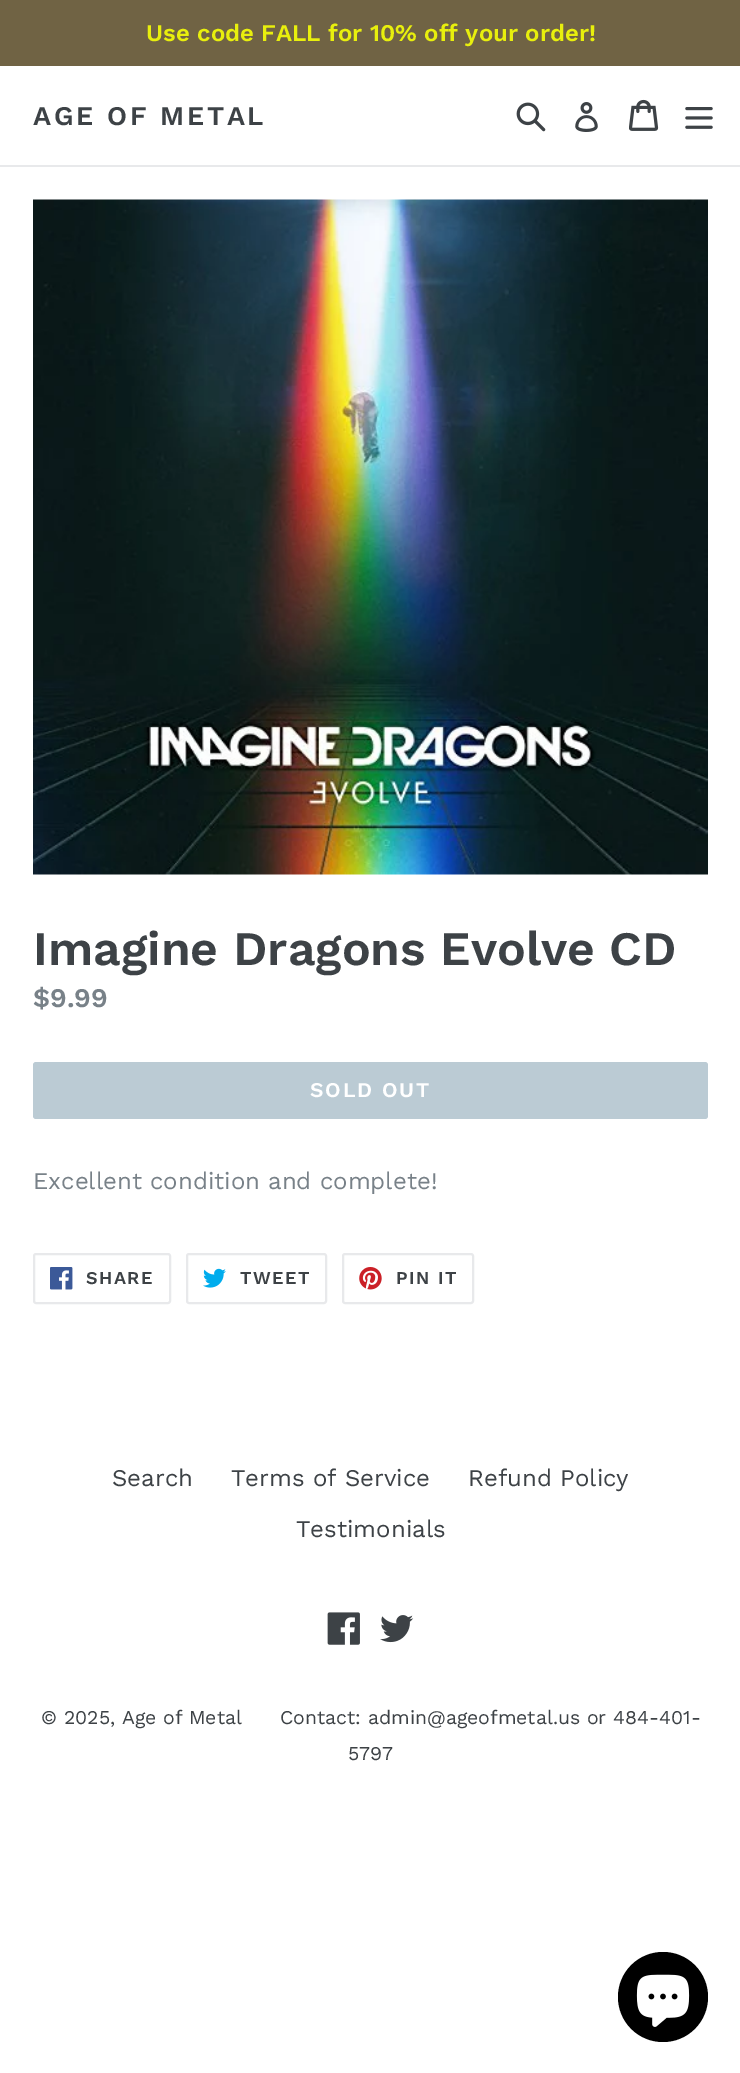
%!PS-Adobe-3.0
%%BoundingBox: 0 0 740 2073
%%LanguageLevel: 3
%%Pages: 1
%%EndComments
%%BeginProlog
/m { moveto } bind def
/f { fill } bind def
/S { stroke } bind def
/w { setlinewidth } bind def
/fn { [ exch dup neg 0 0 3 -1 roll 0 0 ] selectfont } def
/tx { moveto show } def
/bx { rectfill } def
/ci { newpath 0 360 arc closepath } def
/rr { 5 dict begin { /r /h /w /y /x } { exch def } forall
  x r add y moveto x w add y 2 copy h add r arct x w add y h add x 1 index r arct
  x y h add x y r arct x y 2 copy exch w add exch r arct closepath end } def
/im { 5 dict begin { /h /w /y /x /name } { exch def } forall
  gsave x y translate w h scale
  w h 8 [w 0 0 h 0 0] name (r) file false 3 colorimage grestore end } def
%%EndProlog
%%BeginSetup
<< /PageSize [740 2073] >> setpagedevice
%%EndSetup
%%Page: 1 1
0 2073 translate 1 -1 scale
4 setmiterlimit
1 setgray
0 0 740 2073 bx
0.439 0.388 0.267 setrgbcolor
0 0 740 66 bx
/WorkSans-SemiBold 24 fn
0.91 0.937 0.051 setrgbcolor
(Use code FALL for 10% off your order!) 146 41 tx
0.91 0.914 0.922 setrgbcolor
0 165 740 2 bx
/WorkSans-SemiBold 27 fn
0.239 0.259 0.275 setrgbcolor
33 125 m 2.75 0 (AGE OF METAL) ashow
(image0.raw) 516 102 30 30 im
(image1.raw) 575 102 23 30 im
(image2.raw) 629 99 30 32 im
(image3.raw) 685 107 28 22 im
(image4.raw) 33 199 675 676 im
/WorkSans-SemiBold 48 fn
(Imagine Dragons Evolve CD) 33 965 tx
/WorkSans-SemiBold 27 fn
0.471 0.506 0.533 setrgbcolor
($9.99) 33 1007 tx
0.733 0.796 0.831 setrgbcolor
33 1062 675 57 3 rr f
/WorkSans-SemiBold 21 fn
1 setgray
310 1097 m 1.75 0 (SOLD OUT) ashow
/WorkSans-Regular 24 fn
0.471 0.506 0.533 setrgbcolor
(Excellent condition and complete!) 33 1189 tx
0.91 0.914 0.922 setrgbcolor
2 w
34 1254 136 49 2 rr S
(image5.raw) 50 1267 23 23 im
/WorkSans-SemiBold 18 fn
0.239 0.259 0.275 setrgbcolor
86 1284 m 1.5 0 (SHARE) ashow
0.91 0.914 0.922 setrgbcolor
187 1254 139 49 2 rr S
(image6.raw) 203 1268 23 20 im
0.239 0.259 0.275 setrgbcolor
240 1284 m 1.5 0 (TWEET) ashow
0.91 0.914 0.922 setrgbcolor
343 1254 130 49 2 rr S
(image7.raw) 359 1267 23 23 im
0.239 0.259 0.275 setrgbcolor
396 1284 m 1.5 0 (PIN IT) ashow
/WorkSans-Regular 24 fn
(Search) 112 1486 tx
(Terms of Service) 231 1486 tx
(Refund Policy) 468 1486 tx
(Testimonials) 296 1537 tx
(image8.raw) 327 1612 33 33 im
(image9.raw) 380 1615 34 28 im
/WorkSans-Regular 19.5 fn
(© 2025, Age of Metal) 41 1724 tx
(Contact: admin@ageofmetal.us or 484-401-) 280 1724 tx
(5797) 348 1760 tx
0 setgray
663 1997 45 ci f
(image10.raw) 636 1974 54 53 im
showpage
%%EOF
